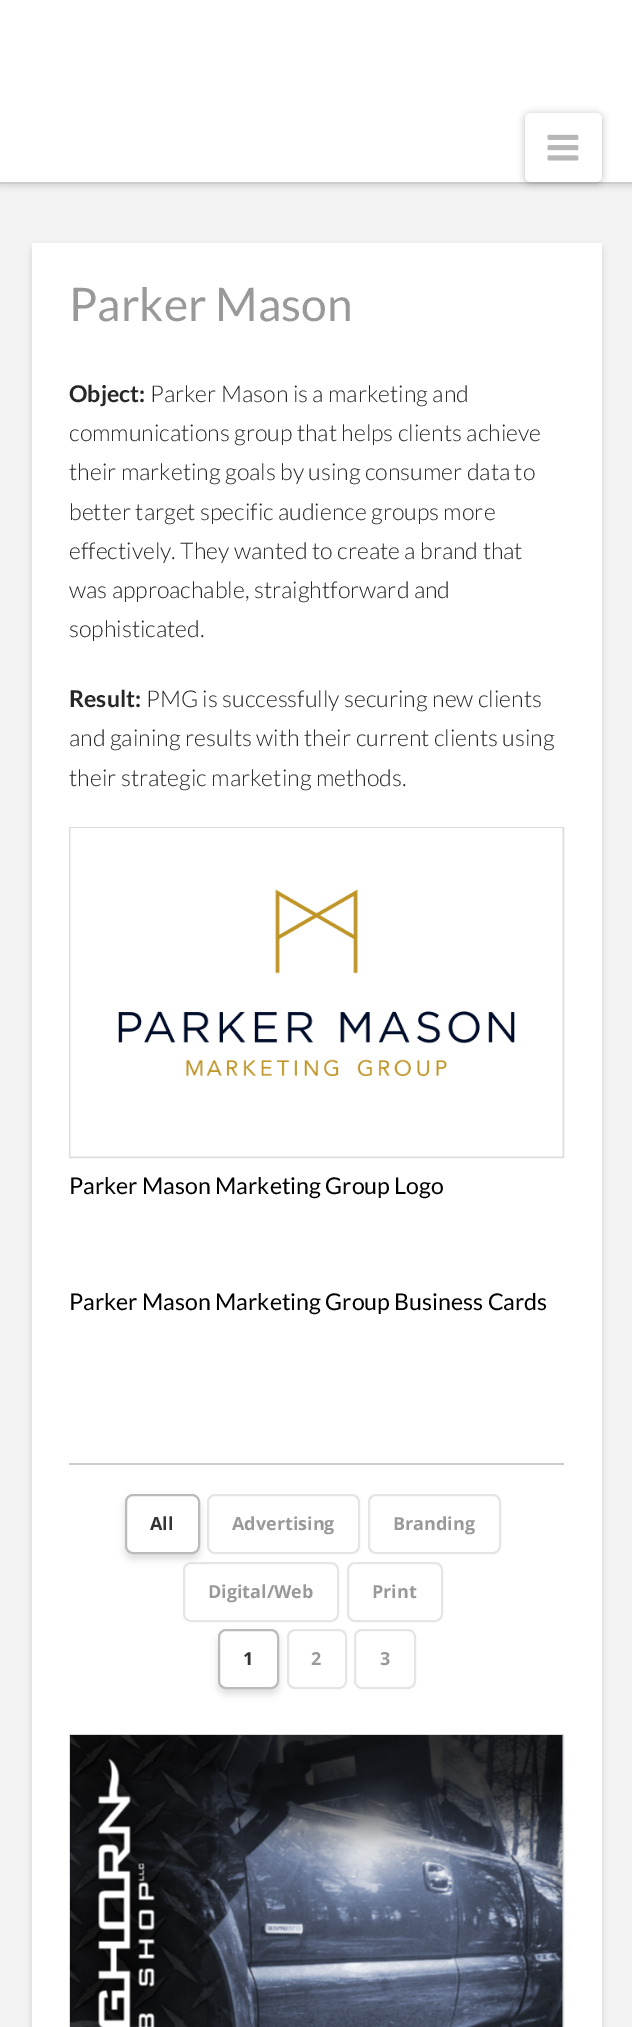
%!PS-Adobe-3.0
%%BoundingBox: 0 0 632 2027
%%LanguageLevel: 3
%%Pages: 1
%%EndComments
%%BeginProlog
/f { fill } bind def
/S { stroke } bind def
/q { gsave } bind def
/Q { grestore } bind def
/w { setlinewidth } bind def
/fn { [ exch dup neg 0 0 3 -1 roll 0 0 ] selectfont } def
/tx { moveto show } def
/bx { rectfill } def
/al { dup .setfillconstantalpha .setstrokeconstantalpha } def
/rr { 5 dict begin { /r /h /w /y /x } { exch def } forall
  x r add y moveto x w add y 2 copy h add r arct x w add y h add x 1 index r arct
  x y h add x y r arct x y 2 copy exch w add exch r arct closepath end } def
/sh { 12 dict begin { /a /b /q /h /w /y /x } { exch def } forall gsave /was 0 def
  9 -2 -9 { dup b mul 4 div /e exch def 1 sub .425 mul 2.718 exch exp 1 add a .99 .min exch div /now exch def
    1 1 now sub 1 was sub div sub al /was now def
    w h .min e 2 mul add 0 gt { x e sub y e sub w e 2 mul add h e 2 mul add
      q e add b .6 mul add w h .min 2 div e add .min 0 .max rr fill } if } for grestore end } def
/im { 5 dict begin { /h /w /y /x /name } { exch def } forall
  gsave x y translate w h scale
  w h 8 [w 0 0 h 0 0] name (r) file false 3 colorimage grestore end } def
%%EndProlog
%%BeginSetup
<< /PageSize [632 2027] /PageUsesTransparency true >> setpagedevice
%%EndSetup
%%Page: 1 1
0 .pushpdf14devicefilter
0 2027 translate 1 -1 scale
4 setmiterlimit
0.953 setgray
0 0 632 2027 bx
0 setgray
0 3 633 183 0 3.5 0.13 sh
1 setgray
0 0 632 182 bx
0.8 setgray
0 182 632 2 bx
0 setgray
525 114 77 69 6 4 0.25 sh
1 setgray
525 113 77 69 6 rr f
(image0.raw) 547 134 32 27 im
0 setgray
32 246 570 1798 6 3.5 0.13 sh
1 setgray
32 243 570 1784 bx
/Lato-Regular 46.25 fn
0.6 setgray
(Parker Mason) 69 321 tx
/Lato-Bold 23.1 fn
0.153 setgray
(Object:) 69 402 tx
/Lato-Light 23.1 fn
(Parker Mason is a marketing and) 150 402 tx
(communications group that helps clients achieve) 69 441 tx
(their marketing goals by using consumer data to) 69 480 tx
(better target specific audience groups more) 69 520 tx
(effectively. They wanted to create a brand that) 69 559 tx
(was approachable, straightforward and) 69 598 tx
(sophisticated.) 69 637 tx
/Lato-Bold 23.1 fn
(Result:) 69 707 tx
/Lato-Light 23.1 fn
(PMG is successfully securing new clients) 146 707 tx
(and gaining results with their current clients using) 69 746 tx
(their strategic marketing methods.) 69 786 tx
0.867 setgray
2 w
70 828 493 329 rectstroke
(image1.raw) 70 828 493 329 im
/Lato-Regular 23.1 fn
0 setgray
(Parker Mason Marketing Group Logo) 69 1194 tx
(Parker Mason Marketing Group Business Cards) 69 1310 tx
0.8 setgray
69 1463 495 2 bx
0 setgray
125 1499 75 60 8 4 0.13 sh
1 setgray
126 1495 73 58 7 rr q f Q
0.733 setgray
S
/OpenSans-Bold 18 fn
0.2 setgray
(All) 150 1530 tx
0.898 setgray
208 1495 151 58 7 rr S
0.6 setgray
(Advertising) 232 1530 tx
0.898 setgray
369 1495 131 58 7 rr S
0.6 setgray
(Branding) 393 1530 tx
1 setgray
184 1563 154 58 7 rr q f Q
0.898 setgray
S
0.6 setgray
(Digital/Web) 208 1598 tx
0.898 setgray
348 1563 94 58 7 rr S
0.6 setgray
(Print) 372 1598 tx
0 setgray
218 1634 61 60 8 4 0.13 sh
1 setgray
219 1630 59 58 7 rr q f Q
0.733 setgray
S
0.2 setgray
(1) 243 1665 tx
0.898 setgray
288 1630 58 58 7 rr S
0.6 setgray
(2) 311 1665 tx
0.898 setgray
355 1630 60 58 7 rr S
0.6 setgray
(3) 380 1665 tx
0.855 setgray
70 1735 493 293 rectstroke
(image2.raw) 70 1735 493 292 im
.poppdf14devicefilter showpage
%%EOF
